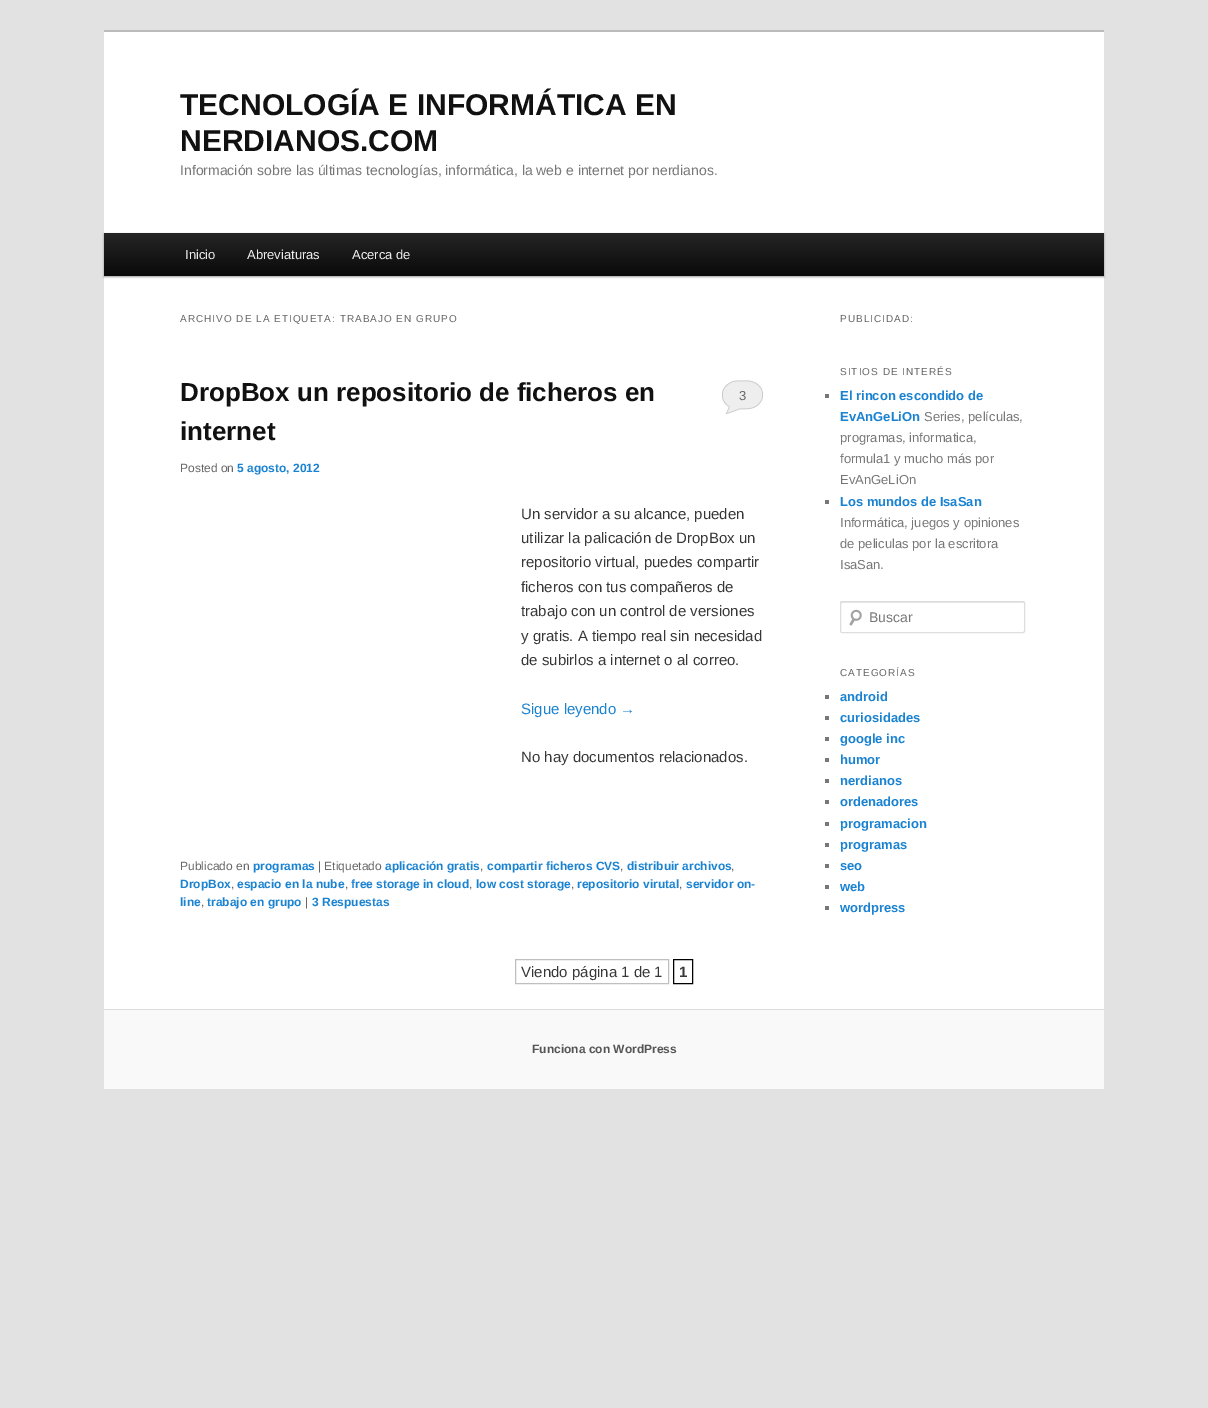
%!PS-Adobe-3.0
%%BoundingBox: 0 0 1208 1408
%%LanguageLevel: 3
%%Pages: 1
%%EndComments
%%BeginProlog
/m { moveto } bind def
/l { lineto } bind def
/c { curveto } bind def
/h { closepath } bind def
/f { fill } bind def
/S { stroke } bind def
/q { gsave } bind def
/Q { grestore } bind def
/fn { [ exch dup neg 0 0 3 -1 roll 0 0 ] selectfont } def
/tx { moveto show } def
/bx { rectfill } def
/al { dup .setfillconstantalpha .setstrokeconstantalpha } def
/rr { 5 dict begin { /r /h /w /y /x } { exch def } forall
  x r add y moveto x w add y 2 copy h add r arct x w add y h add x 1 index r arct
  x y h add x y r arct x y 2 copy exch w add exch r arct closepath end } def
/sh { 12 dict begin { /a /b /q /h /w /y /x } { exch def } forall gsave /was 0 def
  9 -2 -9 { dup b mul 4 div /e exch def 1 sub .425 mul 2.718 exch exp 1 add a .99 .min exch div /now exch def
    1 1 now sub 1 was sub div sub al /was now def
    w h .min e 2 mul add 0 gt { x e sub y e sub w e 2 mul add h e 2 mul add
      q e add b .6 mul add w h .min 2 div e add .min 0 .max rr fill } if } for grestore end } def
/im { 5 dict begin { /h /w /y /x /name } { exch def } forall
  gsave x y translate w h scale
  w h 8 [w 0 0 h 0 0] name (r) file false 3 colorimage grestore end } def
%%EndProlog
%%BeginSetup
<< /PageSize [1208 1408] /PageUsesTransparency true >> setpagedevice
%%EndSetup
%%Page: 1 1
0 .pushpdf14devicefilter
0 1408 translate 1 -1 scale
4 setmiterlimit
0.886 setgray
0 0 1208 1408 bx
1 setgray
104 32 1000 977 bx
0.733 setgray
104 30 1000 2 bx
/LiberationSans-Bold 30 fn
0.067 setgray
(TECNOLOGÍA E INFORMÁTICA EN) 180 115 tx
(NERDIANOS.COM) 180 151 tx
/LiberationSans-Regular 14 fn
0.467 setgray
(Información sobre las últimas tecnologías, informática, la web e internet por nerdianos.) 180 175 tx
0 setgray
104 234 1000 43 0 1 0.4 sh
q 104 233 m 1104 233 l 1104 276 l 104 276 l h clip newpath
<< /ShadingType 2 /ColorSpace /DeviceRGB /Coords [604 233 604 276] /Extend [true true] /Function << /FunctionType 2 /Domain [0 1] /C0 [0.145 0.145 0.145] /C1 [0.039 0.039 0.039] /N 1 >> >> shfill Q
/LiberationSans-Regular 13 fn
0.933 setgray
(Inicio) 185 259 tx
(Abreviaturas) 247 259 tx
(Acerca de) 352 259 tx
/LiberationSans-Regular 10 fn
0.4 setgray
180 322 m 1 0 (ARCHIVO DE LA ETIQUETA: TRABAJO EN GRUPO) ashow
/LiberationSans-Bold 26 fn
0.067 setgray
(DropBox un repositorio de ficheros en) 180 401 tx
(internet) 180 440 tx
0.933 setgray
722 380 41 34 bx
(image0.raw) 721 378 43 36 im
/LiberationSans-Regular 13 fn
0.4 setgray
(3) 739 400 tx
/LiberationSans-Regular 12 fn
(Posted on) 180 472 tx
/LiberationSans-Bold 12 fn
0.098 0.51 0.82 setrgbcolor
(5 agosto, 2012) 237 472 tx
/LiberationSans-Regular 15 fn
0.216 setgray
(Un servidor a su alcance, pueden) 521 519 tx
(utilizar la palicación de DropBox un) 521 543 tx
(repositorio virtual, puedes compartir) 521 567 tx
(ficheros con tus compañeros de) 521 592 tx
(trabajo con un control de versiones) 521 616 tx
(y gratis. A tiempo real sin necesidad) 521 641 tx
(de subirlos a internet o al correo.) 521 665 tx
0.098 0.51 0.82 setrgbcolor
(Sigue leyendo →) 521 714 tx
0.216 setgray
(No hay documentos relacionados.) 521 762 tx
/LiberationSans-Regular 12 fn
0.4 setgray
(Publicado en) 180 870 tx
/LiberationSans-Bold 12 fn
0.098 0.51 0.82 setrgbcolor
(programas) 253 870 tx
/LiberationSans-Regular 12 fn
0.4 setgray
(| Etiquetado) 318 870 tx
/LiberationSans-Bold 12 fn
0.098 0.51 0.82 setrgbcolor
(aplicación gratis) 385 870 tx
/LiberationSans-Regular 12 fn
0.4 setgray
(,) 480 870 tx
/LiberationSans-Bold 12 fn
0.098 0.51 0.82 setrgbcolor
(compartir ficheros CVS) 487 870 tx
/LiberationSans-Regular 12 fn
0.4 setgray
(,) 620 870 tx
/LiberationSans-Bold 12 fn
0.098 0.51 0.82 setrgbcolor
(distribuir archivos) 627 870 tx
/LiberationSans-Regular 12 fn
0.4 setgray
(,) 731 870 tx
/LiberationSans-Bold 12 fn
0.098 0.51 0.82 setrgbcolor
(DropBox) 180 888 tx
/LiberationSans-Regular 12 fn
0.4 setgray
(,) 231 888 tx
/LiberationSans-Bold 12 fn
0.098 0.51 0.82 setrgbcolor
(espacio en la nube) 237 888 tx
/LiberationSans-Regular 12 fn
0.4 setgray
(,) 345 888 tx
/LiberationSans-Bold 12 fn
0.098 0.51 0.82 setrgbcolor
(free storage in cloud) 351 888 tx
/LiberationSans-Regular 12 fn
0.4 setgray
(,) 469 888 tx
/LiberationSans-Bold 12 fn
0.098 0.51 0.82 setrgbcolor
(low cost storage) 476 888 tx
/LiberationSans-Regular 12 fn
0.4 setgray
(,) 571 888 tx
/LiberationSans-Bold 12 fn
0.098 0.51 0.82 setrgbcolor
(repositorio virutal) 577 888 tx
/LiberationSans-Regular 12 fn
0.4 setgray
(,) 679 888 tx
/LiberationSans-Bold 12 fn
0.098 0.51 0.82 setrgbcolor
(servidor on-) 686 888 tx
(line) 180 906 tx
/LiberationSans-Regular 12 fn
0.4 setgray
(,) 201 906 tx
/LiberationSans-Bold 12 fn
0.098 0.51 0.82 setrgbcolor
(trabajo en grupo) 207 906 tx
/LiberationSans-Regular 12 fn
0.4 setgray
(|) 305 906 tx
/LiberationSans-Bold 12 fn
0.098 0.51 0.82 setrgbcolor
(3 Respuestas) 312 906 tx
/LiberationSans-Regular 10 fn
0.4 setgray
840 322 m 1 0 (PUBLICIDAD:) ashow
840 375 m 1 0 (SITIOS DE INTERÉS) ashow
0.467 setgray
825 394 4 4 bx
/LiberationSans-Bold 13 fn
0.098 0.51 0.82 setrgbcolor
(El rincon escondido de) 840 400 tx
(EvAnGeLiOn) 840 421 tx
/LiberationSans-Regular 13 fn
0.467 setgray
(Series, películas,) 924 421 tx
(programas, informatica,) 840 442 tx
(formula1 y mucho más por) 840 463 tx
(EvAnGeLiOn) 840 484 tx
825 500 4 4 bx
/LiberationSans-Bold 13 fn
0.098 0.51 0.82 setrgbcolor
(Los mundos de IsaSan) 840 506 tx
/LiberationSans-Regular 13 fn
0.467 setgray
(Informática, juegos y opiniones) 840 527 tx
(de peliculas por la escritora) 840 548 tx
(IsaSan.) 840 569 tx
(image1.raw) 849 609 13 17 im
0.902 setgray
842 603 m 1024 603 l 1024 604 l 1024 603 1024 602 1023 602 c 841 602 l 841 604 l 841 603 841 603 842 603 c h f
0.867 setgray
840.5 601.5 184 31 1.5 rr S
/LiberationSans-Regular 14 fn
0.467 setgray
(Buscar) 869 622 tx
/LiberationSans-Regular 10 fn
0.4 setgray
840 676 m 1 0 (CATEGORÍAS) ashow
0.467 setgray
825 695 4 4 bx
/LiberationSans-Bold 13 fn
0.098 0.51 0.82 setrgbcolor
(android) 840 701 tx
0.467 setgray
825 716 4 4 bx
0.098 0.51 0.82 setrgbcolor
(curiosidades) 840 722 tx
0.467 setgray
825 737 4 4 bx
0.098 0.51 0.82 setrgbcolor
(google inc) 840 743 tx
0.467 setgray
825 758 4 4 bx
0.098 0.51 0.82 setrgbcolor
(humor) 840 764 tx
0.467 setgray
825 779 4 4 bx
0.098 0.51 0.82 setrgbcolor
(nerdianos) 840 785 tx
0.467 setgray
825 800 4 4 bx
0.098 0.51 0.82 setrgbcolor
(ordenadores) 840 806 tx
0.467 setgray
825 822 4 4 bx
0.098 0.51 0.82 setrgbcolor
(programacion) 840 828 tx
0.467 setgray
825 843 4 4 bx
0.098 0.51 0.82 setrgbcolor
(programas) 840 849 tx
0.467 setgray
825 864 4 4 bx
0.098 0.51 0.82 setrgbcolor
(seo) 840 870 tx
0.467 setgray
825 885 4 4 bx
0.098 0.51 0.82 setrgbcolor
(web) 840 891 tx
0.467 setgray
825 906 4 4 bx
0.098 0.51 0.82 setrgbcolor
(wordpress) 840 912 tx
0.749 setgray
515.5 959.5 153 24 rectstroke
/LiberationSans-Regular 15 fn
0.216 setgray
(Viendo página 1 de 1) 521 977 tx
0 setgray
673.5 959.5 19 24 rectstroke
/LiberationSans-Bold 15 fn
0.216 setgray
(1) 679 977 tx
0.976 setgray
104 1010 1000 79 bx
0.867 setgray
104 1009 1000 1 bx
/LiberationSans-Bold 12 fn
0.333 setgray
(Funciona con WordPress) 532 1053 tx
.poppdf14devicefilter showpage
%%EOF
